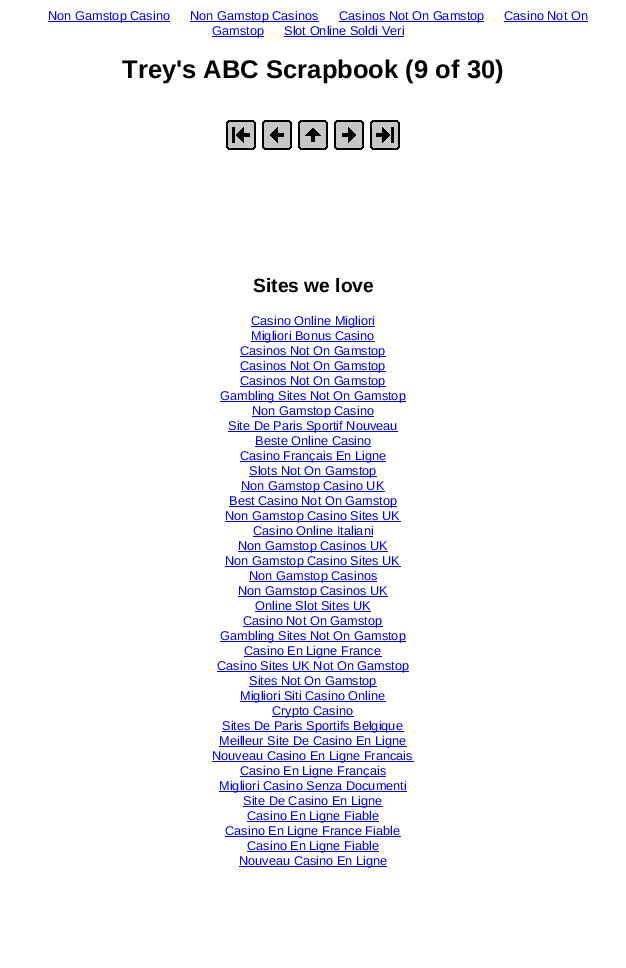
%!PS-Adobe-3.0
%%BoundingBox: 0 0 626 968
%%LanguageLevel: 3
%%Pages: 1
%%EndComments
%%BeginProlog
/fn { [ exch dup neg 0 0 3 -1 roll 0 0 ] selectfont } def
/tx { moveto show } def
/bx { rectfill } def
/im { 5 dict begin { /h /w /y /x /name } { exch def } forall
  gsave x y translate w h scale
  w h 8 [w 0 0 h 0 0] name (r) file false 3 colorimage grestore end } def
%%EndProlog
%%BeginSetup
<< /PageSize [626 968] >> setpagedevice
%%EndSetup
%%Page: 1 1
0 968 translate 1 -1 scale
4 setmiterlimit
1 setgray
0 0 626 968 bx
0 0 0.933 setrgbcolor
48 21 122 1 bx
/LiberationSans-Regular 12.75 fn
(Non Gamstop Casino) 48 20 tx
190 21 129 1 bx
(Non Gamstop Casinos) 190 20 tx
339 21 145 1 bx
(Casinos Not On Gamstop) 339 20 tx
(Casino Not On) 504 20 tx
504 21 84 1 bx
212 36 52 1 bx
(Gamstop) 212 35 tx
(Slot Online Soldi Veri) 284 35 tx
284 36 120 1 bx
/LiberationSans-Bold 25.6 fn
0 setgray
(Trey's ABC Scrapbook \(9 of 30\)) 122 78 tx
(image0.raw) 226 120 30 30 im
(image1.raw) 262 120 30 30 im
(image2.raw) 298 120 30 30 im
(image3.raw) 334 120 30 30 im
(image4.raw) 370 120 30 30 im
/LiberationSans-Bold 19.25 fn
(Sites we love) 253 292 tx
0 0 0.933 setrgbcolor
251 326 124 1 bx
/LiberationSans-Regular 12.75 fn
(Casino Online Migliori) 251 325 tx
251 341 124 1 bx
(Migliori Bonus Casino) 251 340 tx
240 356 146 1 bx
(Casinos Not On Gamstop) 240 355 tx
240 371 146 1 bx
(Casinos Not On Gamstop) 240 370 tx
240 386 146 1 bx
(Casinos Not On Gamstop) 240 385 tx
220 401 186 1 bx
(Gambling Sites Not On Gamstop) 220 400 tx
252 416 122 1 bx
(Non Gamstop Casino) 252 415 tx
228 431 170 1 bx
(Site De Paris Sportif Nouveau) 228 430 tx
(Beste Online Casino) 255 445 tx
255 446 116 1 bx
240 461 146 1 bx
(Casino Français En Ligne) 240 460 tx
249 476 128 1 bx
(Slots Not On Gamstop) 249 475 tx
241 491 144 1 bx
(Non Gamstop Casino UK) 241 490 tx
229 506 168 1 bx
(Best Casino Not On Gamstop) 229 505 tx
225 521 176 1 bx
(Non Gamstop Casino Sites UK) 225 520 tx
(Casino Online Italiani) 253 535 tx
253 536 120 1 bx
238 551 150 1 bx
(Non Gamstop Casinos UK) 238 550 tx
225 566 176 1 bx
(Non Gamstop Casino Sites UK) 225 565 tx
249 581 128 1 bx
(Non Gamstop Casinos) 249 580 tx
238 596 150 1 bx
(Non Gamstop Casinos UK) 238 595 tx
(Online Slot Sites UK) 255 610 tx
255 611 116 1 bx
243 626 140 1 bx
(Casino Not On Gamstop) 243 625 tx
220 641 186 1 bx
(Gambling Sites Not On Gamstop) 220 640 tx
244 656 138 1 bx
(Casino En Ligne France) 244 655 tx
217 671 192 1 bx
(Casino Sites UK Not On Gamstop) 217 670 tx
249 686 128 1 bx
(Sites Not On Gamstop) 249 685 tx
240 701 146 1 bx
(Migliori Siti Casino Online) 240 700 tx
272 716 82 1 bx
(Crypto Casino) 272 715 tx
222 731 182 1 bx
(Sites De Paris Sportifs Belgique) 222 730 tx
219 746 188 1 bx
(Meilleur Site De Casino En Ligne) 219 745 tx
212 761 202 1 bx
(Nouveau Casino En Ligne Francais) 212 760 tx
240 776 146 1 bx
(Casino En Ligne Français) 240 775 tx
219 791 188 1 bx
(Migliori Casino Senza Documenti) 219 790 tx
243 806 140 1 bx
(Site De Casino En Ligne) 243 805 tx
247 821 132 1 bx
(Casino En Ligne Fiable) 247 820 tx
225 836 176 1 bx
(Casino En Ligne France Fiable) 225 835 tx
247 851 132 1 bx
(Casino En Ligne Fiable) 247 850 tx
239 866 148 1 bx
(Nouveau Casino En Ligne) 239 865 tx
showpage
%%EOF
